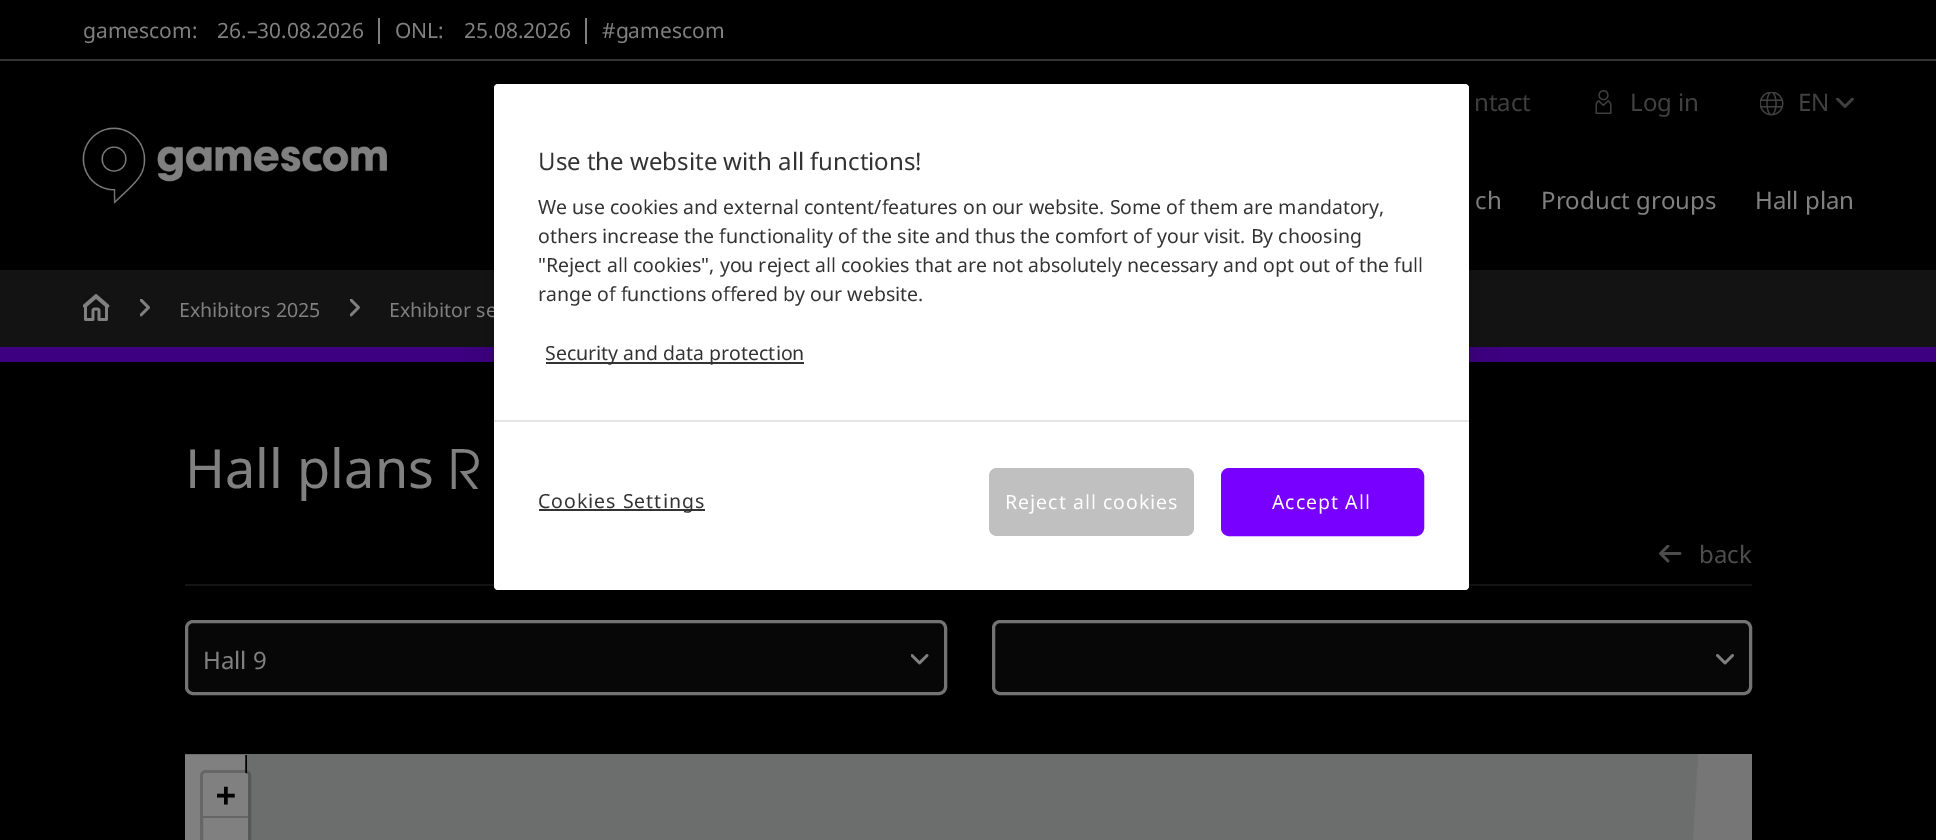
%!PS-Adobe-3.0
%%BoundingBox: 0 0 1936 840
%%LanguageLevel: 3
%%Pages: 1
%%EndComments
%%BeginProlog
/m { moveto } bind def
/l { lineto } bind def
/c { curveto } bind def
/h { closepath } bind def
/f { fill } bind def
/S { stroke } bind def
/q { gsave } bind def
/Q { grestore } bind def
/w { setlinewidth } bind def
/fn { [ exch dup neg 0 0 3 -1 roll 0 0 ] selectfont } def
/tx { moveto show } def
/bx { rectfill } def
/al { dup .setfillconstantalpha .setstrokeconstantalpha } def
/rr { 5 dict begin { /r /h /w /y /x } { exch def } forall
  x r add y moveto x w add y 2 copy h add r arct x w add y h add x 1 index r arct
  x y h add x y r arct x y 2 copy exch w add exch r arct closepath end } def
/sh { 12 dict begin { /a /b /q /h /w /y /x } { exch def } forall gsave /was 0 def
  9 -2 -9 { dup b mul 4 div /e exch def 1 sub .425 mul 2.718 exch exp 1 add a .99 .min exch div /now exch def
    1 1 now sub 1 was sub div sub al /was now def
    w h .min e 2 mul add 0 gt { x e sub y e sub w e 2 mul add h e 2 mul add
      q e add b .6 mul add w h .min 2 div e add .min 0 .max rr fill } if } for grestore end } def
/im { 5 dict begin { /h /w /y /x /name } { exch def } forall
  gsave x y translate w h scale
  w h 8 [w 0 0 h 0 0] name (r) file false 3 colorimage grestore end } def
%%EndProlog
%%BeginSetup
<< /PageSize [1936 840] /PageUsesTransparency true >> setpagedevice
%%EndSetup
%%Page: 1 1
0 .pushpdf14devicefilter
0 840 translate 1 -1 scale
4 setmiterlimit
0 setgray
0 0 1936 840 bx
/NotoSans-Regular 21 fn
0.502 setgray
(gamescom:) 83 38 tx
(26.–30.08.2026) 217 38 tx
378 18 2 26 bx
(ONL:) 395 38 tx
(25.08.2026) 464 38 tx
585 18 2 26 bx
(#gamescom) 602 38 tx
0.2 setgray
0 59 1936 2 bx
/NotoSans-Regular 24 fn
0.251 setgray
(ntact) 1474 111 tx
(image0.raw) 1595 90 17 24 im
(Log in) 1630 111 tx
(image1.raw) 1760 92 24 24 im
(EN) 1798 111 tx
(image2.raw) 1836 98 18 10 im
(image3.raw) 82 127 305 77 im
0.502 setgray
(ch) 1475 209 tx
(Product groups) 1541 209 tx
(Hall plan) 1755 209 tx
0.075 setgray
0 270 1936 77 bx
0.235 0 0.502 setrgbcolor
0 347 1936 15 bx
0.075 setgray
185 584 1567 2 bx
0.027 setgray
186.5 621.5 759 72 6.5 rr q f Q
0.451 setgray
3 w
S
0.027 setgray
993.5 621.5 757 72 6.5 rr q f Q
0.451 setgray
S
0 setgray
494 84 975 506 4 13.5 0.2 sh
/NotoSans-Regular 19.5 fn
0.502 setgray
(Exhibitor se) 389 317 tx
1 setgray
494 84 975 506 4 rr f
/NotoSans-Regular 24 fn
0.2 setgray
(Use the website with all functions!) 538 170 tx
/NotoSans-Regular 19.5 fn
(We use cookies and external content/features on our website. Some of them are mandatory,) 538 214 tx
(others increase the functionality of the site and thus the comfort of your visit. By choosing) 538 243 tx
("Reject all cookies", you reject all cookies that are not absolutely necessary and opt out of the full) 538 272 tx
(range of functions offered by our website.) 538 301 tx
546 362 258 2 bx
(Security and data protection) 545 360 tx
0.898 setgray
494 420 975 2 bx
0.2 setgray
539 509 166 2 bx
538 508 m 1 0 (Cookies Settings) ashow
0.753 setgray
989 468 205 68 8 rr f
1 setgray
1005 509 m 1 0 (Reject all cookies) ashow
0.471 0 1 setrgbcolor
1222 469 201 66 7 rr q f Q
2 w
S
1 setgray
1272 509 m 1 0 (Accept All) ashow
(image4.raw) 140 299 10 18 im
(image5.raw) 83 294 27 27 im
(image4.raw) 350 299 10 18 im
0.502 setgray
(Exhibitors 2025) 179 317 tx
/NotoSans-Regular 54 fn
(Hall plans) 185 488 tx
/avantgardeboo-Regular 54 fn
(R) 448 489 tx
(image6.raw) 1659 545 23 18 im
/NotoSans-Regular 24 fn
0.302 setgray
(back) 1699 563 tx
0.502 setgray
(Hall 9) 203 669 tx
(image7.raw) 911 654 18 11 im
(image8.raw) 1716 654 18 11 im
(image9.raw) 185 754 1567 86 im
(image10.raw) 185 755 62 85 im
0.2 al
0 setgray
3 w
201.5 771.5 48 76 4.5 rr S
1 al
0.502 setgray
206 773 m 245 773 l 246.5 773 248 774.5 248 776 c 248 818 l 203 818 l 203 776 l 203 774.5 204.5 773 206 773 c h f
0.4 setgray
203 816 45 2 bx
/DejaVuSansMono-Bold 33 fn
0 setgray
(+) 216 806 tx
0.502 setgray
245 818 3 22 bx
.poppdf14devicefilter showpage
%%EOF
